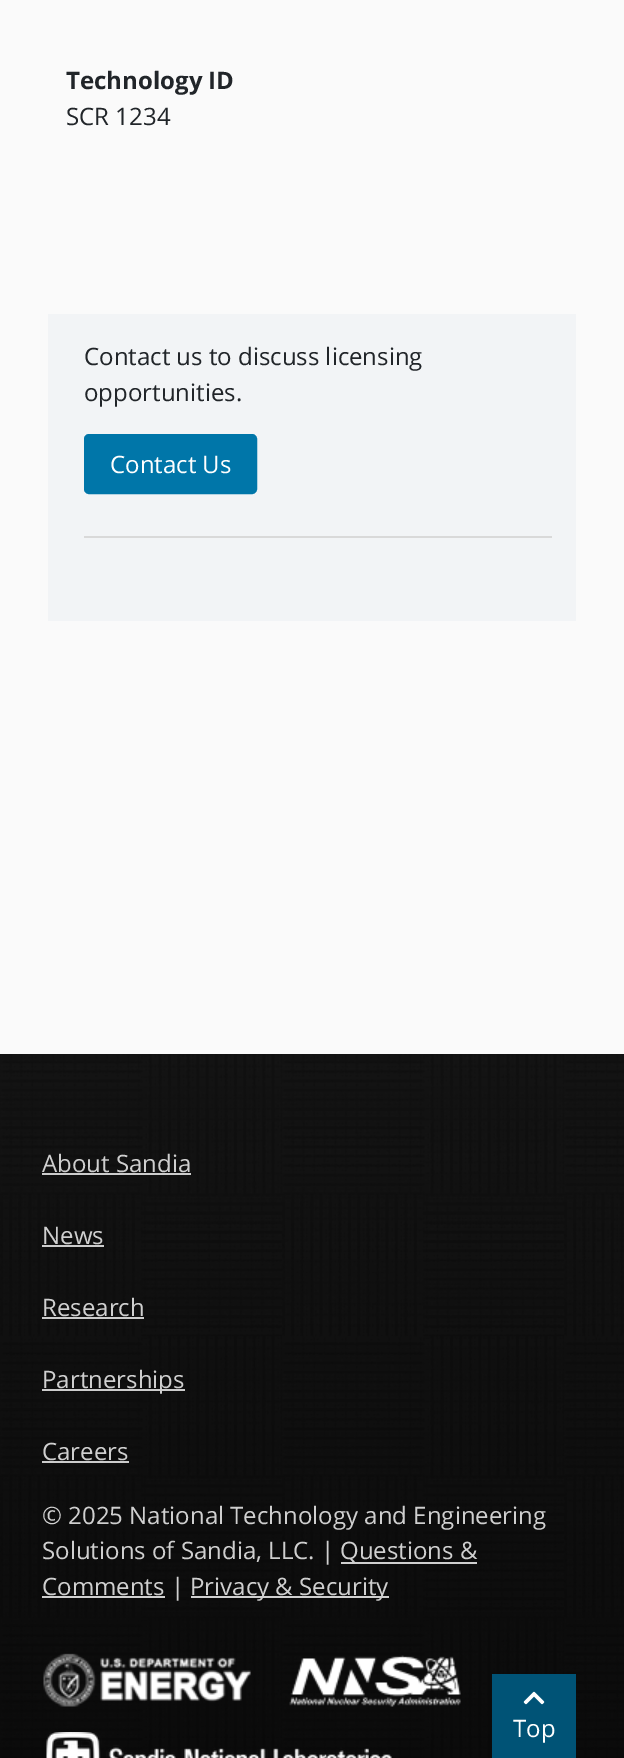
%!PS-Adobe-3.0
%%BoundingBox: 0 0 624 1758
%%LanguageLevel: 3
%%Pages: 1
%%EndComments
%%BeginProlog
/f { fill } bind def
/S { stroke } bind def
/q { gsave } bind def
/Q { grestore } bind def
/w { setlinewidth } bind def
/fn { [ exch dup neg 0 0 3 -1 roll 0 0 ] selectfont } def
/tx { moveto show } def
/bx { rectfill } def
/rr { 5 dict begin { /r /h /w /y /x } { exch def } forall
  x r add y moveto x w add y 2 copy h add r arct x w add y h add x 1 index r arct
  x y h add x y r arct x y 2 copy exch w add exch r arct closepath end } def
/im { 5 dict begin { /h /w /y /x /name } { exch def } forall
  gsave x y translate w h scale
  w h 8 [w 0 0 h 0 0] name (r) file false 3 colorimage grestore end } def
%%EndProlog
%%BeginSetup
<< /PageSize [624 1758] >> setpagedevice
%%EndSetup
%%Page: 1 1
0 1758 translate 1 -1 scale
4 setmiterlimit
0.98 setgray
0 0 624 1758 bx
/OpenSans-Bold 24 fn
0.129 0.145 0.161 setrgbcolor
(Technology ID) 66 89 tx
/OpenSans-Regular 24 fn
(SCR 1234) 66 125 tx
0.949 0.957 0.965 setrgbcolor
48 314 528 307 bx
0.129 0.145 0.161 setrgbcolor
(Contact us to discuss licensing) 84 365 tx
(opportunities.) 84 401 tx
0.851 setgray
84 536 468 2 bx
0 0.463 0.663 setrgbcolor
85 435 171 58 4 rr q f Q
2 w
S
1 setgray
(Contact Us) 110 473 tx
(image0.raw) 0 1054 624 704 im
0.812 setgray
(About Sandia) 42 1172 tx
0.8 setgray
42 1173 149 2 bx
0.812 setgray
(News) 42 1244 tx
0.8 setgray
42 1245 62 2 bx
0.812 setgray
(Research) 42 1316 tx
0.8 setgray
42 1317 102 2 bx
42 1389 143 2 bx
0.812 setgray
(Partnerships) 42 1388 tx
(Careers) 42 1460 tx
0.8 setgray
42 1461 87 2 bx
0.812 setgray
(© 2025 National Technology and Engineering) 42 1524 tx
(Solutions of Sandia, LLC. |) 42 1559 tx
341 1562 136 2 bx
(Questions &) 340 1559 tx
42 1596 123 2 bx
(Comments |) 42 1595 tx
191 1596 198 2 bx
(Privacy & Security) 190 1595 tx
(image1.raw) 43 1653 208 54 im
(image2.raw) 289 1655 172 52 im
(image3.raw) 46 1732 346 26 im
0 0.325 0.463 setrgbcolor
492 1674 84 84 bx
(image4.raw) 523 1691 22 14 im
1 setgray
(Top) 513 1737 tx
showpage
%%EOF
